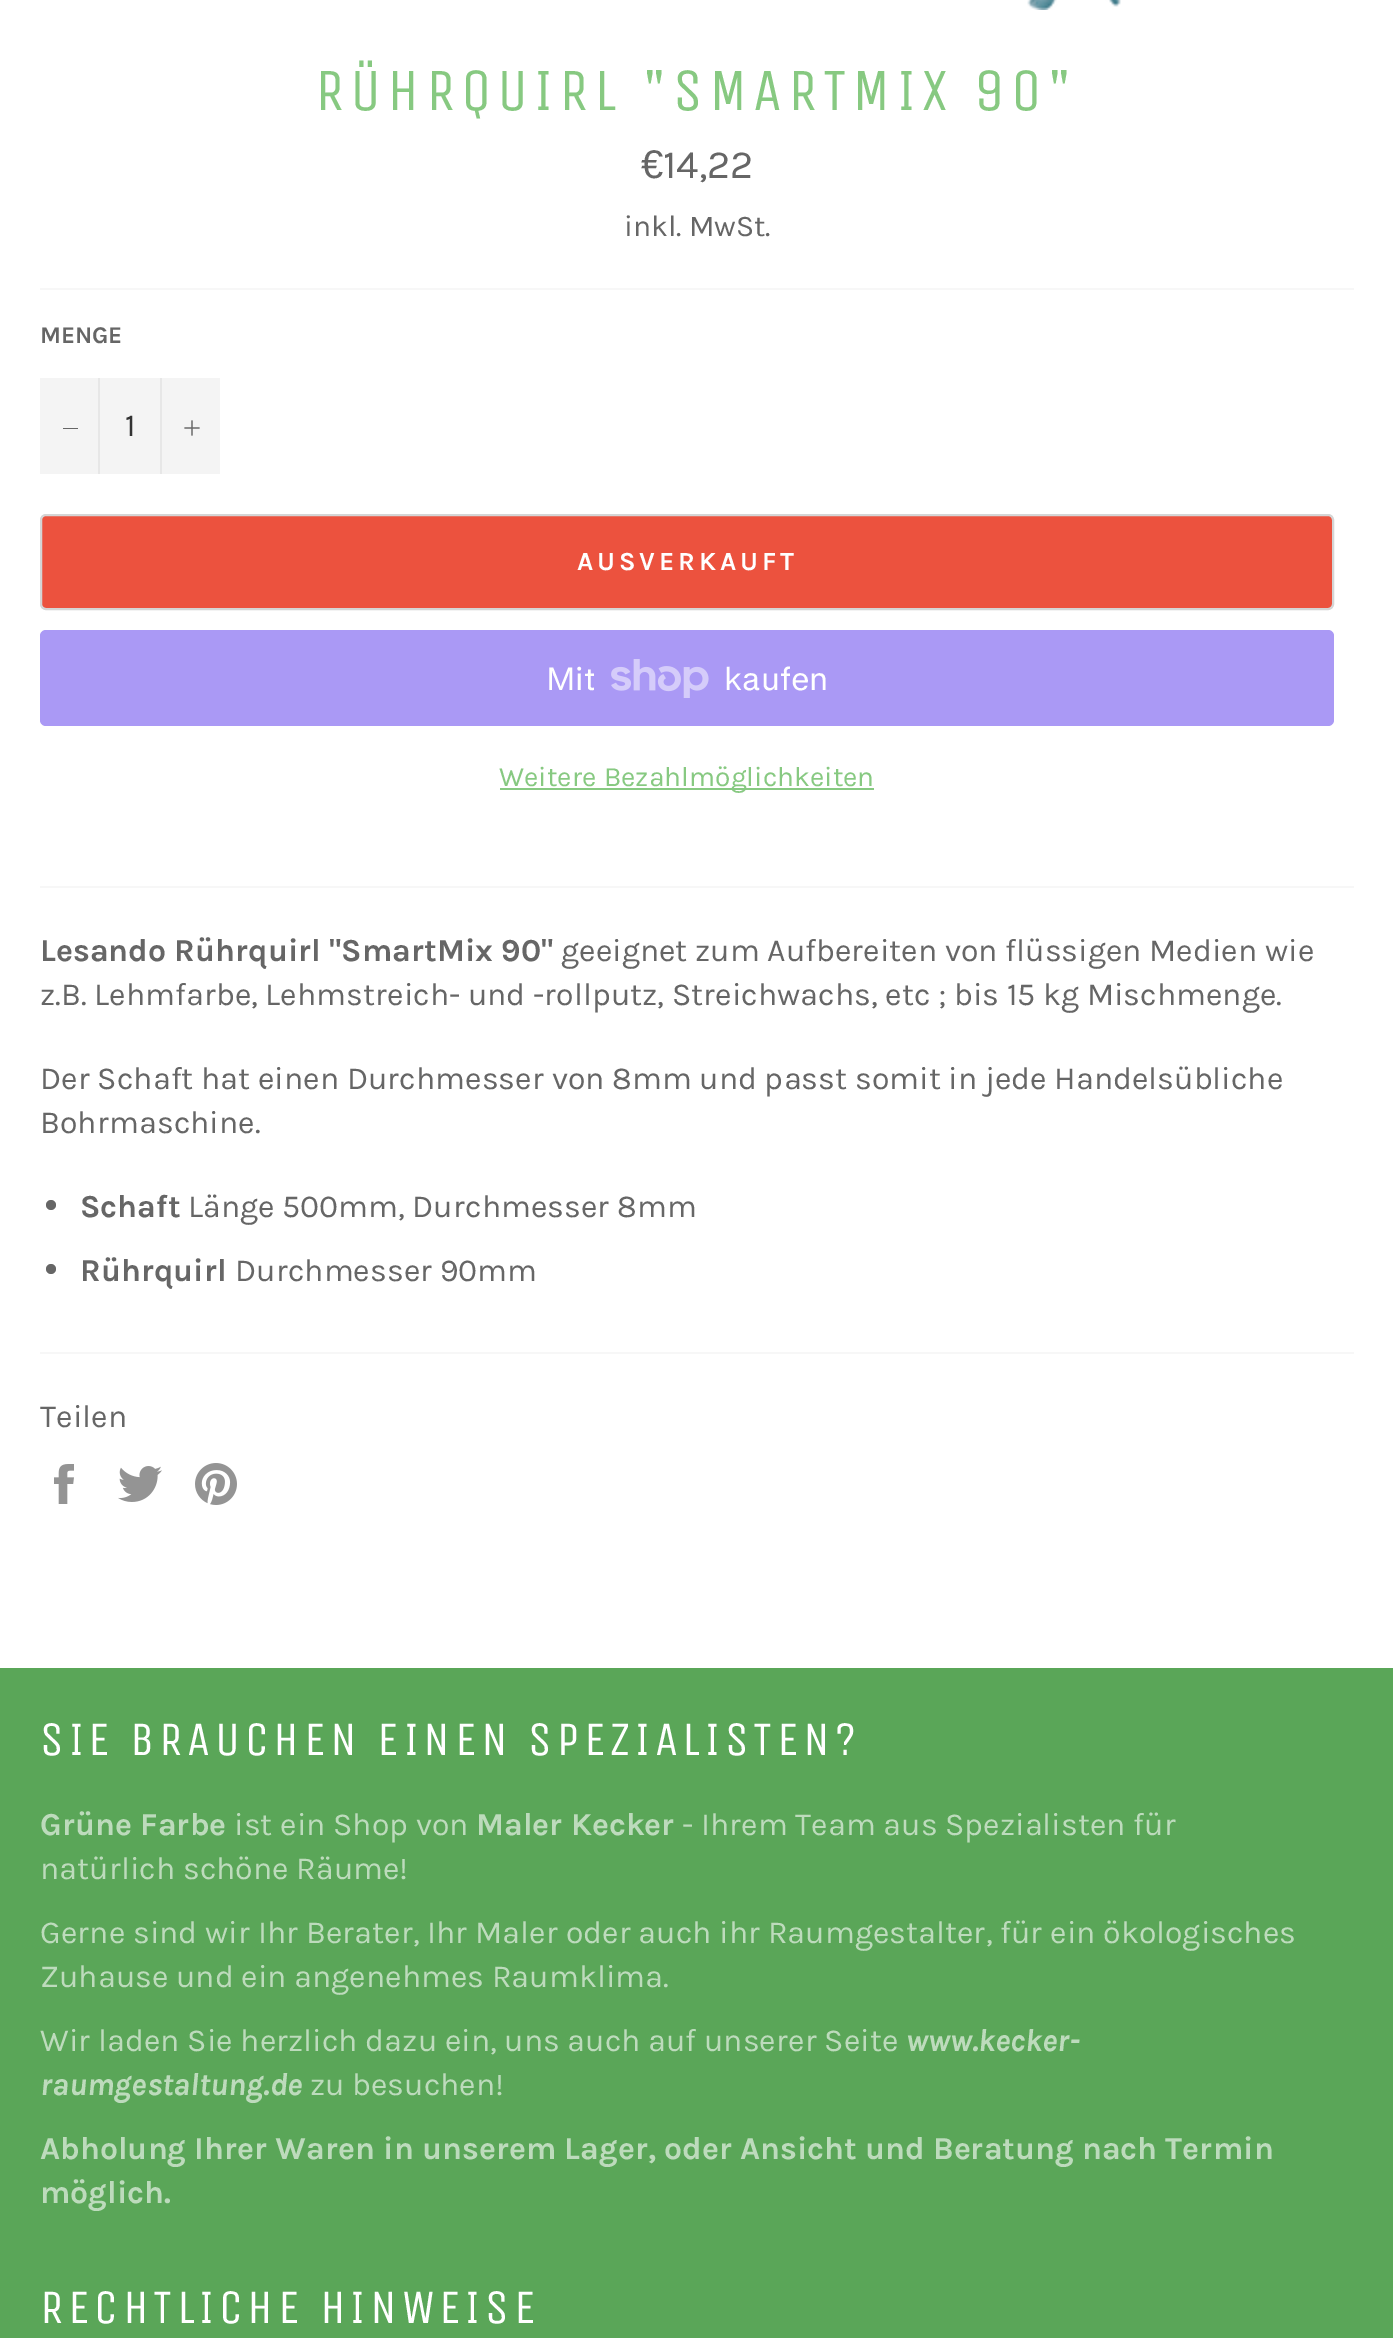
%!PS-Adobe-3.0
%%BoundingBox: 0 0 1393 2338
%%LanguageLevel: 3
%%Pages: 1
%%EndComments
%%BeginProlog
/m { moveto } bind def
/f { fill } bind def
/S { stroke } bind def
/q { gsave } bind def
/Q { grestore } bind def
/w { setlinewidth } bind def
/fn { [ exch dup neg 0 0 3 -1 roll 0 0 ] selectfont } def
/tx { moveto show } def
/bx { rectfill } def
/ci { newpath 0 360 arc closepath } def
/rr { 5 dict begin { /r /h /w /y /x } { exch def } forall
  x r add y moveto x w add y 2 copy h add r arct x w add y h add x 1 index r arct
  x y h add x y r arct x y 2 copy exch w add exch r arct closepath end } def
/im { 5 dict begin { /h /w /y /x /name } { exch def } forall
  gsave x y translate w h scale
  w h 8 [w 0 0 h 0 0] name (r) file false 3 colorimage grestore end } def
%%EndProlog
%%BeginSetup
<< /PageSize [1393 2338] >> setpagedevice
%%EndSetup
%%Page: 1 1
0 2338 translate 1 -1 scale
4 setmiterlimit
1 setgray
0 0 1393 2338 bx
(image0.raw) 1027 0 94 10 im
/UnicaOne-Regular 60 fn
0.529 0.788 0.506 setrgbcolor
315 110 m 6 0 (RÜHRQUIRL "SMARTMIX 90") ashow
/LiberationSans-Regular 40 fn
0.4 setgray
(€) 641 178 tx
/Karla-Regular 40 fn
(14,22) 663 178 tx
/Karla-Regular 30 fn
(inkl. MwSt.) 624 236 tx
0.969 setgray
40 288 1314 2 bx
/Karla-Bold 24 fn
0.4 setgray
(MENGE) 40 343 tx
0.957 setgray
40 378 180 96 bx
0.906 setgray
98 378 2 96 bx
0.4 setgray
63 428 15 1 bx
/Karla-Regular 32 fn
0.2 setgray
(1) 125 436 tx
0.906 setgray
160 378 2 96 bx
(image1.raw) 184 420 16 16 im
0.925 0.322 0.243 setrgbcolor
41 515 1292 94 5 rr q f Q
0.835 setgray
2 w
S
/Karla-Bold 26 fn
1 setgray
577 570 m 3.9 0 (AUSVERKAUFT) ashow
0.667 0.6 0.961 setrgbcolor
40 630 1294 96 6 rr f
/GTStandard-Regular 32 fn
1 setgray
(Mit) 546 690 tx
(image2.raw) 611 659 98 39 im
(kaufen) 724 690 tx
0.529 0.788 0.506 setrgbcolor
500 788 374 2 bx
/Karla-Regular 28 fn
(Weitere Bezahlmöglichkeiten) 499 786 tx
0.969 setgray
40 886 1314 2 bx
/Karla-Bold 32 fn
0.4 setgray
(Lesando Rührquirl "SmartMix 90") 40 961 tx
/Karla-Regular 32 fn
(geeignet zum Aufbereiten von flüssigen Medien wie) 561 961 tx
(z.B. Lehmfarbe, Lehmstreich- und -rollputz, Streichwachs, etc ; bis 15 kg Mischmenge.) 40 1005 tx
(Der Schaft hat einen Durchmesser von 8mm und passt somit in jede Handelsübliche) 40 1089 tx
(Bohrmaschine.) 40 1133 tx
51 1205 5 ci f
/Karla-Bold 32 fn
(Schaft) 80 1217 tx
/Karla-Regular 32 fn
(Länge 500mm, Durchmesser 8mm) 188 1217 tx
51 1269 5 ci f
/Karla-Bold 32 fn
(Rührquirl) 80 1281 tx
/Karla-Regular 32 fn
(Durchmesser 90mm) 235 1281 tx
0.969 setgray
40 1352 1314 2 bx
0.4 setgray
(Teilen) 40 1427 tx
(image3.raw) 54 1464 20 40 im
(image4.raw) 118 1466 44 36 im
(image5.raw) 195 1463 42 42 im
0.353 0.651 0.345 setrgbcolor
0 1668 1393 670 bx
/UnicaOne-Regular 48 fn
1 setgray
40 1755 m 4.8 0 (SIE BRAUCHEN EINEN SPEZIALISTEN?) ashow
/Karla-Bold 32 fn
0.741 0.859 0.737 setrgbcolor
(Grüne Farbe) 40 1835 tx
/Karla-Regular 32 fn
(ist ein Shop von) 234 1835 tx
/Karla-Bold 32 fn
(Maler Kecker) 476 1835 tx
/Karla-Regular 32 fn
(- Ihrem Team aus Spezialisten für) 682 1835 tx
(natürlich schöne Räume!) 40 1879 tx
(Gerne sind wir Ihr Berater, Ihr Maler oder auch ihr Raumgestalter, für ein ökologisches) 40 1943 tx
(Zuhause und ein angenehmes Raumklima.) 40 1987 tx
(Wir laden Sie herzlich dazu ein, uns auch auf unserer Seite) 40 2051 tx
/Karla-BoldItalic 32 fn
(www.kecker-) 906 2051 tx
(raumgestaltung.de) 40 2095 tx
/Karla-Regular 32 fn
(zu besuchen!) 310 2095 tx
/Karla-Bold 32 fn
(Abholung Ihrer Waren in unserem Lager, oder Ansicht und Beratung nach Termin) 40 2159 tx
(möglich.) 40 2203 tx
/UnicaOne-Regular 48 fn
1 setgray
40 2323 m 4.8 0 (RECHTLICHE HINWEISE) ashow
showpage
%%EOF
